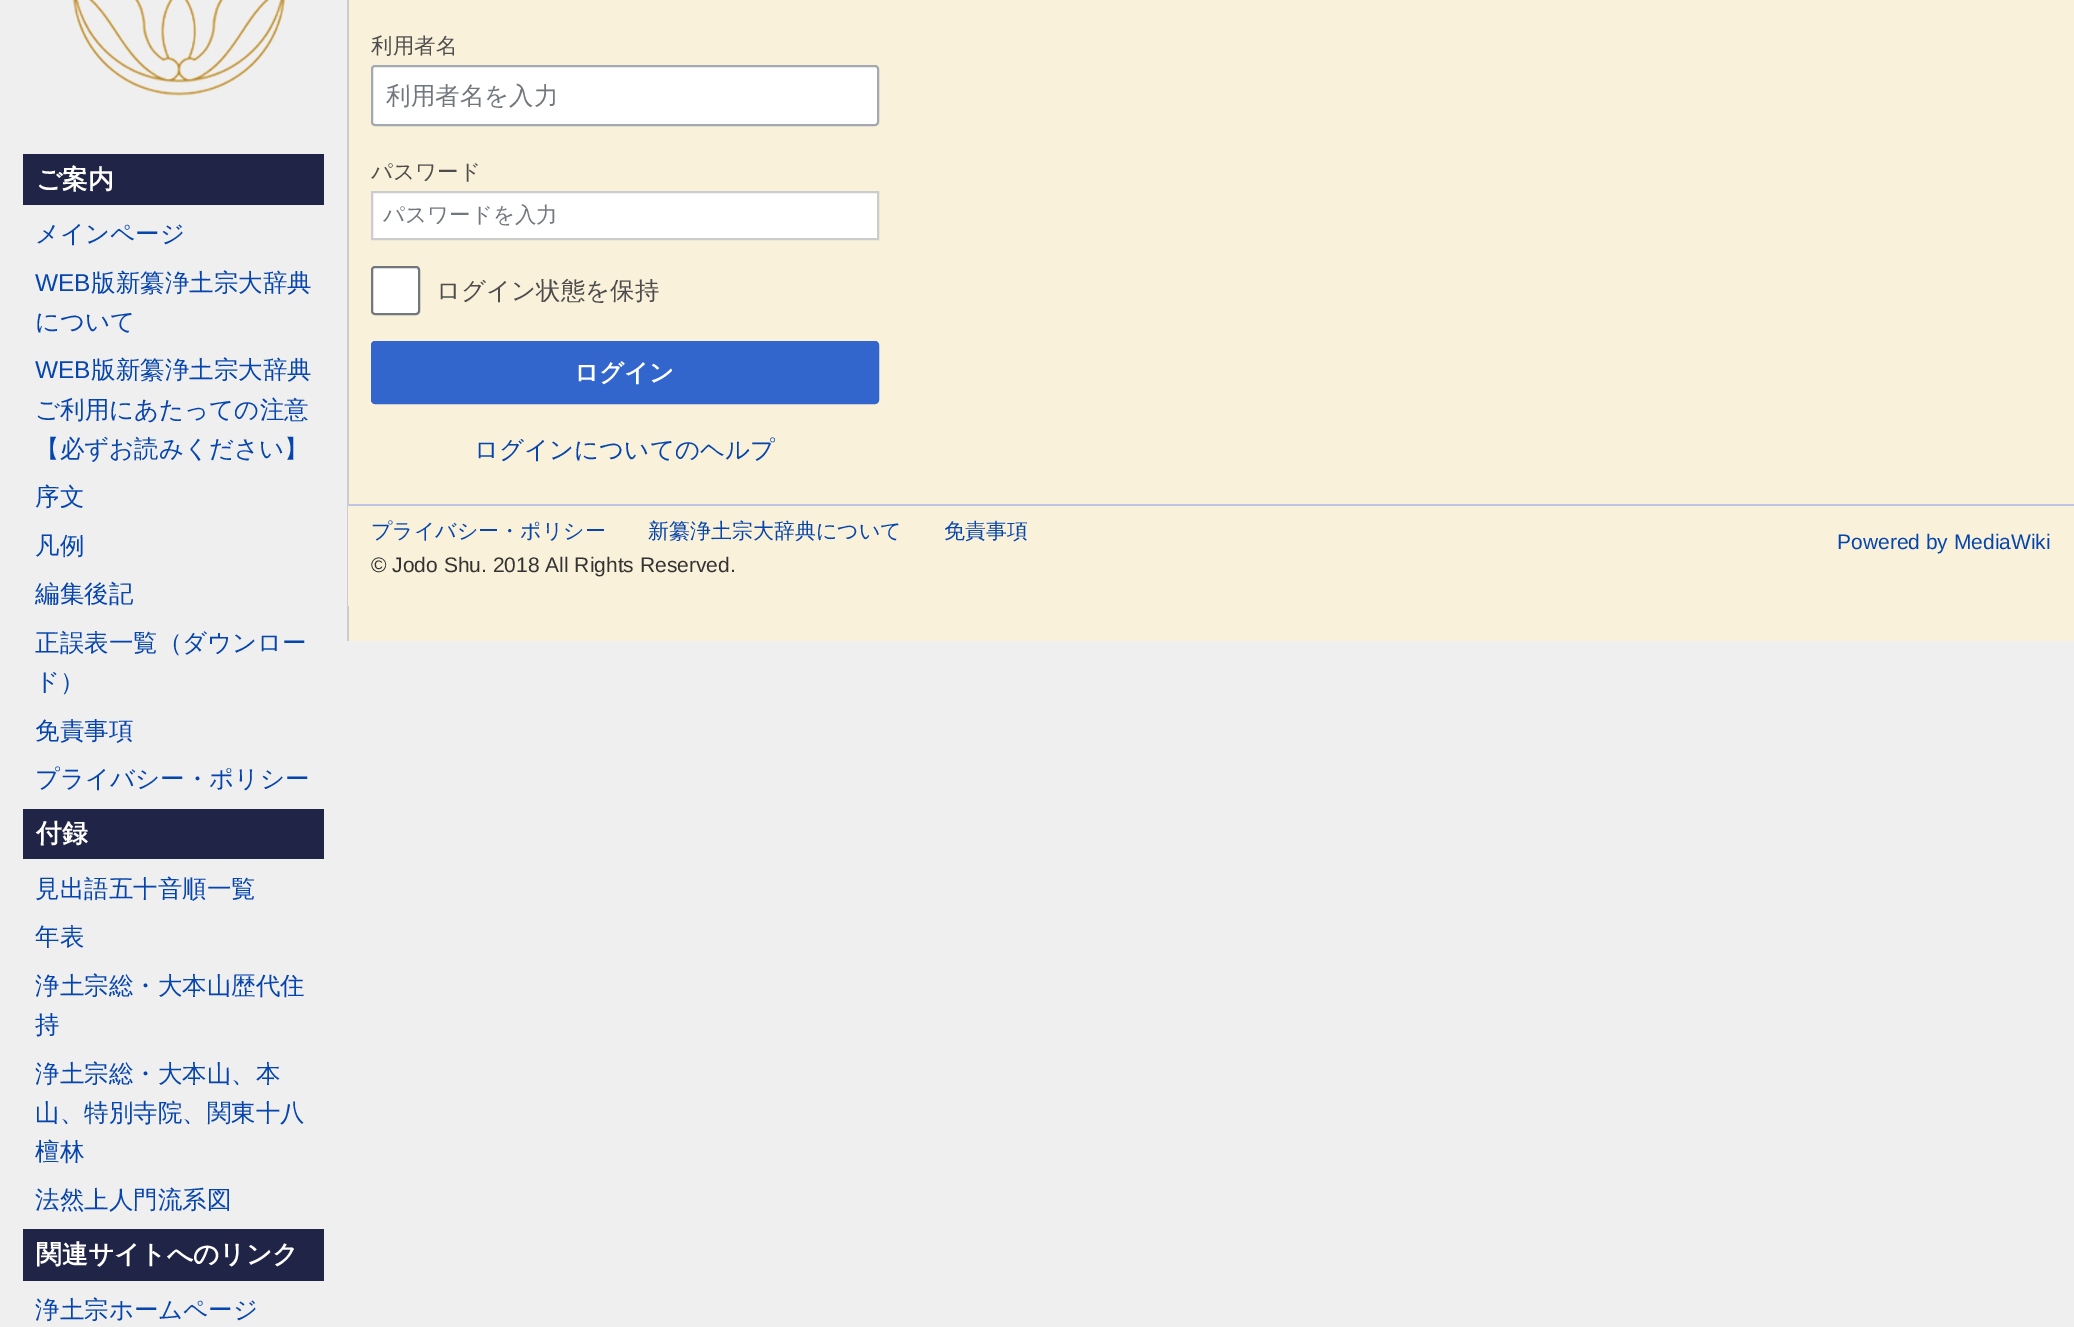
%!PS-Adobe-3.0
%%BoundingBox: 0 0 2074 1327
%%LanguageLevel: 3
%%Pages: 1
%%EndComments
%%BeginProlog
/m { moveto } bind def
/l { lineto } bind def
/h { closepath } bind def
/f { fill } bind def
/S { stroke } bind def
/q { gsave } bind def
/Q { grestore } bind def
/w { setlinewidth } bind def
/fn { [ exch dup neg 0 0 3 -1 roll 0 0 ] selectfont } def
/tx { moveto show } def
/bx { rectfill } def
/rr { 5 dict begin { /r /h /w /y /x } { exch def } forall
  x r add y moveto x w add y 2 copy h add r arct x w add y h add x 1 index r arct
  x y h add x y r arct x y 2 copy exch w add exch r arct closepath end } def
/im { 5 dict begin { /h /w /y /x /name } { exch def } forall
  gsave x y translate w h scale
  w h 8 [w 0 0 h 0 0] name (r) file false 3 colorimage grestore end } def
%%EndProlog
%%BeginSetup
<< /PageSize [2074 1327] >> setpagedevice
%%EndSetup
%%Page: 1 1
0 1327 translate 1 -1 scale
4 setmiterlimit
0.937 setgray
0 0 2074 1327 bx
(image0.raw) 72 0 213 96 im
0.125 0.145 0.278 setrgbcolor
23 154 301 51 bx
/WenQuanYiZenHei-Bold 25.75 fn
1 setgray
(ご案内) 36 188 tx
/WenQuanYiZenHei-Medium 24.5 fn
0.024 0.271 0.678 setrgbcolor
(メインページ) 35 242 tx
/LiberationSans-Regular 24.5 fn
(WEB) 35 291 tx
/WenQuanYiZenHei-Medium 24.5 fn
(版新纂浄土宗大辞典) 91 291 tx
(について) 35 330 tx
/LiberationSans-Regular 24.5 fn
(WEB) 35 378 tx
/WenQuanYiZenHei-Medium 24.5 fn
(版新纂浄土宗大辞典) 91 378 tx
(ご利用にあたっての注意) 35 418 tx
(【必ずお読みください】) 35 457 tx
(序文) 35 505 tx
(凡例) 35 554 tx
(編集後記) 35 602 tx
(正誤表一覧（ダウンロー) 35 651 tx
(ド）) 35 690 tx
(免責事項) 35 739 tx
(プライバシー・ポリシー) 35 787 tx
0.125 0.145 0.278 setrgbcolor
23 809 301 50 bx
/WenQuanYiZenHei-Bold 25.75 fn
1 setgray
(付録) 36 842 tx
/WenQuanYiZenHei-Medium 24.5 fn
0.024 0.271 0.678 setrgbcolor
(見出語五十音順一覧) 35 897 tx
(年表) 35 945 tx
(浄土宗総・大本山歴代住) 35 994 tx
(持) 35 1033 tx
(浄土宗総・大本山、本) 35 1082 tx
(山、特別寺院、関東十八) 35 1121 tx
(檀林) 35 1160 tx
(法然上人門流系図) 35 1208 tx
0.125 0.145 0.278 setrgbcolor
23 1229 301 52 bx
/WenQuanYiZenHei-Bold 25.75 fn
1 setgray
(関連サイトへのリンク) 36 1263 tx
/WenQuanYiZenHei-Medium 24.5 fn
0.024 0.271 0.678 setrgbcolor
(浄土宗ホームページ) 35 1318 tx
0.98 0.945 0.855 setrgbcolor
349 0 1725 641 bx
0.8 setgray
347 0 2 641 bx
/WenQuanYiZenHei-Medium 21.5 fn
0.302 setgray
(利用者名) 371 53 tx
1 setgray
372 66 506 59 3 rr q f Q
0.635 0.663 0.694 setrgbcolor
2 w
S
/WenQuanYiZenHei-Medium 24.5 fn
0.447 0.467 0.49 setrgbcolor
(利用者名を入力) 386 104 tx
/WenQuanYiZenHei-Medium 21.5 fn
0.302 setgray
(パスワード) 371 179 tx
1 setgray
372 192 m 878 192 l 878 239 l 372 239 l h q f Q
0.8 setgray
S
0.447 0.467 0.49 setrgbcolor
(パスワードを入力) 383 222 tx
1 setgray
372 267 47 47 3 rr q f Q
0.447 0.467 0.49 setrgbcolor
S
/WenQuanYiZenHei-Medium 24.5 fn
0.302 setgray
(ログイン状態を保持) 436 299 tx
0.2 0.4 0.8 setrgbcolor
372 342 506 61 3 rr q f Q
S
/WenQuanYiZenHei-Bold 24.5 fn
1 setgray
(ログイン) 574 381 tx
/WenQuanYiZenHei-Medium 24.5 fn
0.024 0.271 0.678 setrgbcolor
(ログインについてのヘルプ) 474 458 tx
0.98 0.945 0.855 setrgbcolor
348 506 1 100 bx
0.765 0.765 0.898 setrgbcolor
348 504 1726 2 bx
/WenQuanYiZenHei-Medium 21 fn
0.024 0.271 0.678 setrgbcolor
(プライバシー・ポリシー) 371 538 tx
(新纂浄土宗大辞典について) 648 538 tx
(免責事項) 944 538 tx
/LiberationSans-Regular 21 fn
0.2 setgray
(© Jodo Shu. 2018 All Rights Reserved.) 371 572 tx
0.024 0.271 0.678 setrgbcolor
(Powered by MediaWiki) 1837 549 tx
showpage
%%EOF
